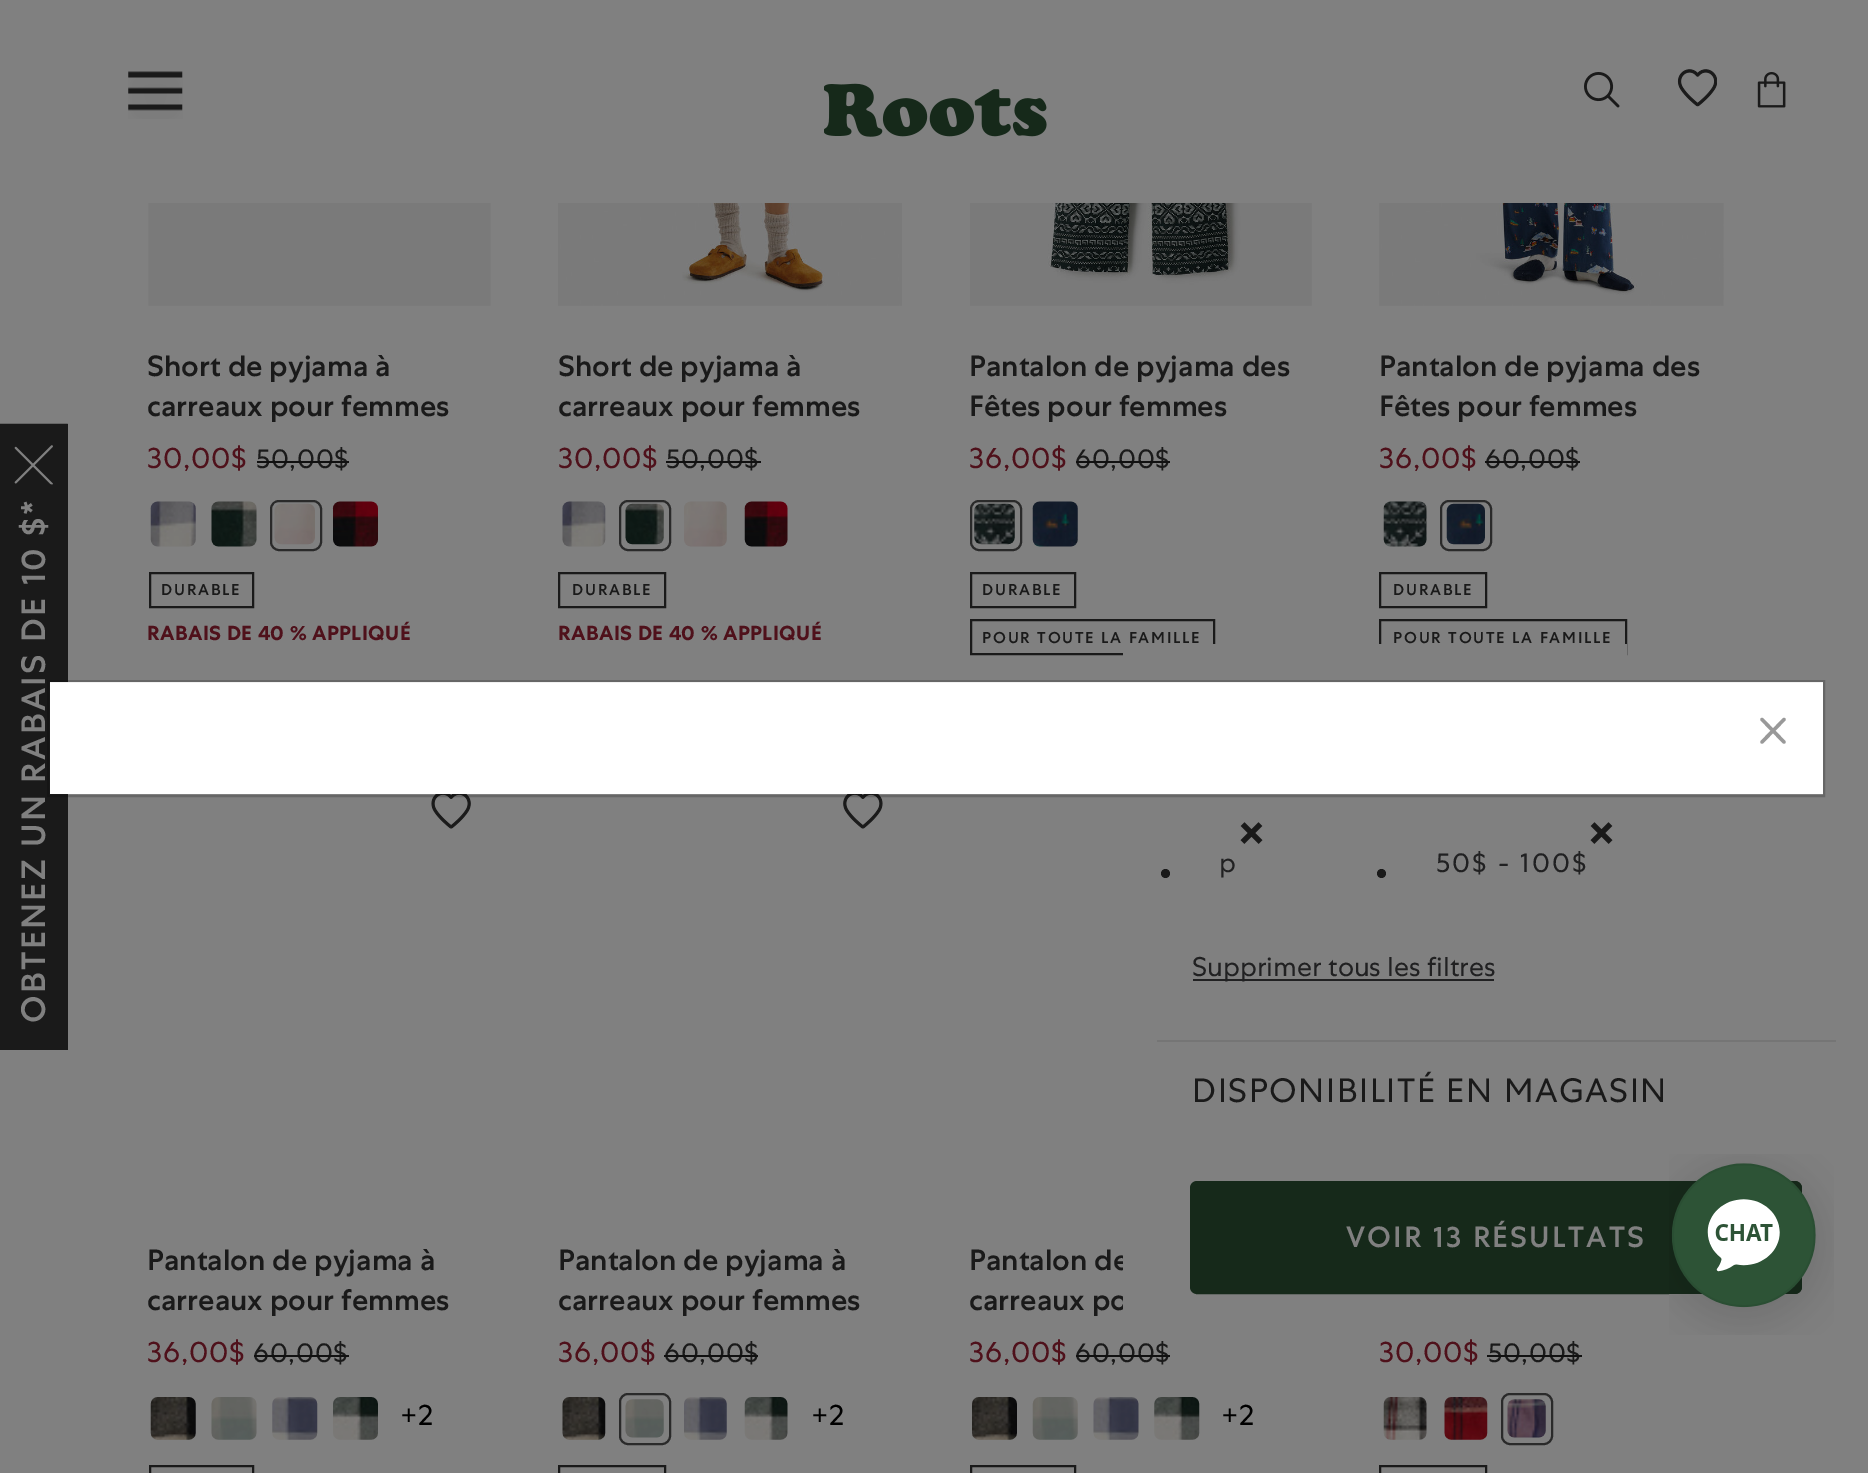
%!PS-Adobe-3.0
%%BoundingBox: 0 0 1868 1473
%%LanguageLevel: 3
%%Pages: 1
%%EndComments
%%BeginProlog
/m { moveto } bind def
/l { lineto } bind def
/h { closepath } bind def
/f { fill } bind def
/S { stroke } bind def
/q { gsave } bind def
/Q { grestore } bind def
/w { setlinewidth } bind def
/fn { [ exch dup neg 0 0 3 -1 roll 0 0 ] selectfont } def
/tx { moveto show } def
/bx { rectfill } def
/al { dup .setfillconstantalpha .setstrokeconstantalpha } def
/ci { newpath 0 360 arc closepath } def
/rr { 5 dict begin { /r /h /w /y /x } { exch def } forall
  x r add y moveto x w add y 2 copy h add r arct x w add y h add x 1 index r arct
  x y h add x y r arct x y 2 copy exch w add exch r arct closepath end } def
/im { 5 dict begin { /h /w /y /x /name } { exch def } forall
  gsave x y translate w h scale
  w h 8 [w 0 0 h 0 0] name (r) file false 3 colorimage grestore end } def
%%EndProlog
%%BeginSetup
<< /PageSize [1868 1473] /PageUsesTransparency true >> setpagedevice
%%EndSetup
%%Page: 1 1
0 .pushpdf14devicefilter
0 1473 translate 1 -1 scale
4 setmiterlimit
0.502 setgray
0 0 1868 1473 bx
0.102 setgray
0 424 68 626 bx
2.2 w
1 1048.5 m 1 425 l 66.5 425 l 66.5 1048.5 l h S
(image0.raw) 14 445 39 40 im
/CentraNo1-Medium 33.75 fn
0.502 setgray
q 45 1023 translate -90 rotate 0 0 m 2.25 0 (OBTENEZ UN RABAIS DE 10 $*) ashow Q
(image1.raw) 128 71 55 48 im
(image2.raw) 824 83 223 54 im
(image3.raw) 1584 72 36 36 im
(image4.raw) 1677 69 40 38 im
(image5.raw) 1757 72 29 36 im
(image6.raw) 148 203 343 103 im
/CentraNo1-Medium 29.25 fn
0.102 setgray
(Short de pyjama à) 147 376 tx
(carreaux pour femmes) 147 416 tx
/CentraNo1-Regular 29.25 fn
0.31 0.067 0.106 setrgbcolor
147 468 m 0.75 0 (30,00$) ashow
/CentraNo1-Regular 27 fn
0.102 setgray
256 468 m 0.75 0 (50,00$) ashow
0.067 setgray
257 461 92 2 bx
(image7.raw) 150 501 46 46 im
(image8.raw) 211 501 46 46 im
0.165 setgray
2 w
271 501 50 49 8 rr S
(image9.raw) 274 503 41 42 im
(image10.raw) 332 501 46 46 im
0.102 setgray
150 573 103 34 rectstroke
/CentraNo1-Medium 15.75 fn
161 595 m 1.8 0 (DURABLE) ashow
/CentraNo1-Bold 20.25 fn
0.31 0.067 0.106 setrgbcolor
147 640 m 0.4 0 (RABAIS DE 40 % APPLIQUÉ) ashow
(image11.raw) 558 203 344 103 im
/CentraNo1-Medium 29.25 fn
0.102 setgray
(Short de pyjama à) 558 376 tx
(carreaux pour femmes) 558 416 tx
/CentraNo1-Regular 29.25 fn
0.31 0.067 0.106 setrgbcolor
558 468 m 0.75 0 (30,00$) ashow
/CentraNo1-Regular 27 fn
0.102 setgray
666 468 m 0.75 0 (50,00$) ashow
0.067 setgray
666 461 95 2 bx
(image12.raw) 562 501 44 46 im
0.165 setgray
620 501 50 49 8 rr S
(image13.raw) 625 503 39 42 im
(image14.raw) 684 501 43 46 im
(image15.raw) 744 501 44 46 im
0.102 setgray
559 573 106 34 rectstroke
/CentraNo1-Medium 15.75 fn
572 595 m 1.8 0 (DURABLE) ashow
/CentraNo1-Bold 20.25 fn
0.31 0.067 0.106 setrgbcolor
558 640 m 0.4 0 (RABAIS DE 40 % APPLIQUÉ) ashow
(image16.raw) 970 203 342 103 im
/CentraNo1-Medium 29.25 fn
0.102 setgray
(Pantalon de pyjama des) 969 376 tx
(Fêtes pour femmes) 969 416 tx
/CentraNo1-Regular 29.25 fn
0.31 0.067 0.106 setrgbcolor
969 468 m 0.75 0 (36,00$) ashow
/CentraNo1-Regular 27 fn
0.102 setgray
1075 468 m 0.75 0 (60,00$) ashow
0.067 setgray
1076 461 94 2 bx
0.165 setgray
971 501 50 49 8 rr S
(image17.raw) 974 503 41 42 im
(image18.raw) 1032 501 46 46 im
0.102 setgray
971 573 104 34 rectstroke
/CentraNo1-Medium 15.75 fn
982 595 m 1.8 0 (DURABLE) ashow
971 620 243 34 rectstroke
982 643 m 1.8 0 (POUR TOUTE LA FAMILLE) ashow
(image19.raw) 1379 203 345 103 im
/CentraNo1-Medium 29.25 fn
(Pantalon de pyjama des) 1379 376 tx
(Fêtes pour femmes) 1379 416 tx
/CentraNo1-Regular 29.25 fn
0.31 0.067 0.106 setrgbcolor
1379 468 m 0.75 0 (36,00$) ashow
/CentraNo1-Regular 27 fn
0.102 setgray
1485 468 m 0.75 0 (60,00$) ashow
0.067 setgray
1485 461 95 2 bx
(image20.raw) 1383 501 44 46 im
0.165 setgray
1441 501 50 49 8 rr S
(image21.raw) 1446 503 39 42 im
0.102 setgray
1380 573 106 34 rectstroke
/CentraNo1-Medium 15.75 fn
1393 595 m 1.8 0 (DURABLE) ashow
1380 620 246 34 rectstroke
1393 643 m 1.8 0 (POUR TOUTE LA FAMILLE) ashow
(image22.raw) 431 794 40 35 im
/CentraNo1-Medium 29.25 fn
(Pantalon de pyjama à) 147 1270 tx
(carreaux pour femmes) 147 1310 tx
/CentraNo1-Regular 29.25 fn
0.31 0.067 0.106 setrgbcolor
147 1362 m 0.75 0 (36,00$) ashow
/CentraNo1-Regular 27 fn
0.102 setgray
253 1362 m 0.75 0 (60,00$) ashow
0.067 setgray
254 1355 95 2 bx
(image23.raw) 150 1397 46 43 im
(image24.raw) 211 1397 46 43 im
(image25.raw) 272 1397 46 43 im
(image26.raw) 333 1397 45 43 im
/CentraNo1-Regular 29.25 fn
0 setgray
(+2) 400 1425 tx
0.102 setgray
150 1466 103 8 rectstroke
(image27.raw) 843 794 40 35 im
/CentraNo1-Medium 29.25 fn
(Pantalon de pyjama à) 558 1270 tx
(carreaux pour femmes) 558 1310 tx
/CentraNo1-Regular 29.25 fn
0.31 0.067 0.106 setrgbcolor
558 1362 m 0.75 0 (36,00$) ashow
/CentraNo1-Regular 27 fn
0.102 setgray
664 1362 m 0.75 0 (60,00$) ashow
0.067 setgray
664 1355 94 2 bx
(image28.raw) 562 1397 44 43 im
0.165 setgray
620 1394 50 50 8 rr S
(image29.raw) 625 1399 39 39 im
(image30.raw) 684 1397 43 43 im
(image31.raw) 744 1397 44 43 im
/CentraNo1-Regular 29.25 fn
0 setgray
(+2) 811 1425 tx
0.102 setgray
559 1466 106 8 rectstroke
/CentraNo1-Medium 29.25 fn
(Pantalon de) 969 1270 tx
(carreaux po) 969 1310 tx
/CentraNo1-Regular 29.25 fn
0.31 0.067 0.106 setrgbcolor
969 1362 m 0.75 0 (36,00$) ashow
/CentraNo1-Regular 27 fn
0.102 setgray
1075 1362 m 0.75 0 (60,00$) ashow
0.067 setgray
1076 1355 94 2 bx
(image32.raw) 972 1397 45 43 im
(image33.raw) 1032 1397 46 43 im
(image34.raw) 1093 1397 46 43 im
(image35.raw) 1154 1397 46 43 im
/CentraNo1-Regular 29.25 fn
0 setgray
(+2) 1221 1425 tx
0.102 setgray
971 1466 104 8 rectstroke
0.31 0.067 0.106 setrgbcolor
1379 1362 m 0.75 0 (30,00$) ashow
/CentraNo1-Regular 27 fn
0.102 setgray
1488 1362 m 0.75 0 (50,00$) ashow
0.067 setgray
1487 1355 95 2 bx
(image36.raw) 1383 1397 44 43 im
(image37.raw) 1444 1397 44 43 im
0.165 setgray
1502 1394 50 50 8 rr S
(image38.raw) 1507 1399 39 39 im
0.102 setgray
1380 1466 106 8 rectstroke
0.502 setgray
1123 644 504 665 bx
0.102 setgray
1165.5 873.5 4.5 ci f
/CentraNo1-Bold 45 fn
1238 848 m 2.25 0 (×) ashow
/CentraNo1-Regular 27 fn
0.129 0.129 0.133 setrgbcolor
1219 872 m 2.25 0 (p) ashow
0.102 setgray
1381.5 873.5 4.5 ci f
/CentraNo1-Bold 45 fn
1588 848 m 2.25 0 (×) ashow
/CentraNo1-Regular 27 fn
0.129 0.129 0.133 setrgbcolor
1436 872 m 2.25 0 (50$ - 100$) ashow
1193 979 301 2 bx
(Supprimer tous les filtres) 1192 976 tx
0.459 setgray
1157 1040 679 2 bx
/CentraNo1-Regular 33.75 fn
0.102 setgray
1192 1102 m 1.6 0 (DISPONIBILITÉ EN MAGASIN) ashow
0.086 0.161 0.102 setrgbcolor
1191 1182 610 111 6 rr q f Q
S
/CentraNo1-Medium 29.25 fn
0.502 setgray
1346 1247 m 2.25 0 (VOIR 13 RÉSULTATS) ashow
1 setgray
50 682 1773 112 bx
0.2 al
0 setgray
48 681 1776 115 rectstroke
1 al
0.6 setgray
3.4 w
1 setlinecap
1 setlinejoin
1784 719.5 m 1762 742 l 1762 719.5 m 1784 742 l S
(image39.raw) 1669 1154 165 181 im
.poppdf14devicefilter showpage
%%EOF
